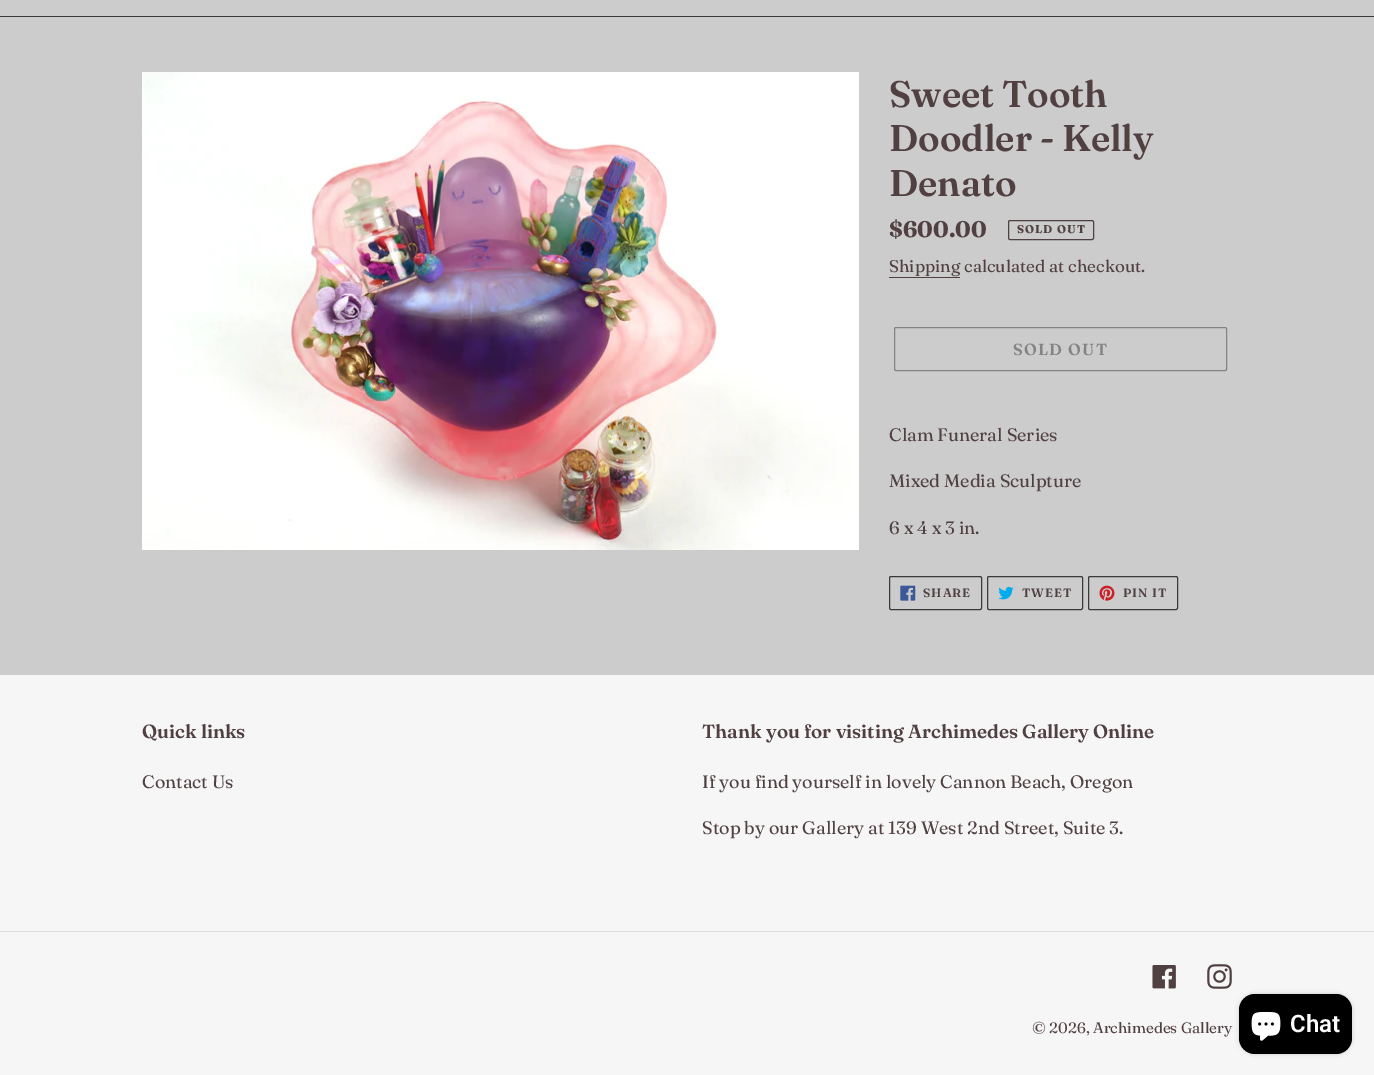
%!PS-Adobe-3.0
%%BoundingBox: 0 0 1374 1075
%%LanguageLevel: 3
%%Pages: 1
%%EndComments
%%BeginProlog
/m { moveto } bind def
/f { fill } bind def
/S { stroke } bind def
/fn { [ exch dup neg 0 0 3 -1 roll 0 0 ] selectfont } def
/tx { moveto show } def
/bx { rectfill } def
/al { dup .setfillconstantalpha .setstrokeconstantalpha } def
/rr { 5 dict begin { /r /h /w /y /x } { exch def } forall
  x r add y moveto x w add y 2 copy h add r arct x w add y h add x 1 index r arct
  x y h add x y r arct x y 2 copy exch w add exch r arct closepath end } def
/sh { 12 dict begin { /a /b /q /h /w /y /x } { exch def } forall gsave /was 0 def
  9 -2 -9 { dup b mul 4 div /e exch def 1 sub .425 mul 2.718 exch exp 1 add a .99 .min exch div /now exch def
    1 1 now sub 1 was sub div sub al /was now def
    w h .min e 2 mul add 0 gt { x e sub y e sub w e 2 mul add h e 2 mul add
      q e add b .6 mul add w h .min 2 div e add .min 0 .max rr fill } if } for grestore end } def
/im { 5 dict begin { /h /w /y /x /name } { exch def } forall
  gsave x y translate w h scale
  w h 8 [w 0 0 h 0 0] name (r) file false 3 colorimage grestore end } def
%%EndProlog
%%BeginSetup
<< /PageSize [1374 1075] /PageUsesTransparency true >> setpagedevice
%%EndSetup
%%Page: 1 1
0 .pushpdf14devicefilter
0 1075 translate 1 -1 scale
4 setmiterlimit
0.8 setgray
0 0 1374 1075 bx
0.227 setgray
0 16 1374 1 bx
(image0.raw) 142 72 717 478 im
/Fraunces-SemiBold 37 fn
0.318 0.251 0.259 setrgbcolor
(Sweet Tooth) 889 107 tx
(Doodler - Kelly) 889 151 tx
(Denato) 889 196 tx
/Fraunces-Bold 22.5 fn
($600.00) 889 237 tx
1008.5 220.5 85 19 1.5 rr S
/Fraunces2-Bold 11.25 fn
1017 233 m 1 0 (SOLD OUT) ashow
/Fraunces-Regular 17 fn
(Shipping calculated at checkout.) 889 272 tx
889 277 71 1 bx
0.514 setgray
894.5 327.5 332 43 1.5 rr S
/Fraunces2-SemiBold 16 fn
1013 355 m 1.25 0 (SOLD OUT) ashow
/Fraunces2-Regular 18 fn
0.318 0.251 0.259 setrgbcolor
(Clam Funeral Series) 889 441 tx
(Mixed Media Sculpture) 889 487 tx
(6 x 4 x 3 in.) 889 534 tx
0.227 setgray
889.5 576.5 92 33 1.5 rr S
(image1.raw) 900 585 16 16 im
/Fraunces2-SemiBold 12 fn
0.318 0.251 0.259 setrgbcolor
923 597 m 1 0 (SHARE) ashow
0.227 setgray
987.5 576.5 95 33 1.5 rr S
(image2.raw) 998 586 16 14 im
0.318 0.251 0.259 setrgbcolor
1022 597 m 1 0 (TWEET) ashow
0.227 setgray
1088.5 576.5 89 33 1.5 rr S
(image3.raw) 1099 585 16 16 im
0.318 0.251 0.259 setrgbcolor
1123 597 m 1 0 (PIN IT) ashow
0.965 setgray
0 675 1374 400 bx
/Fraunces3-SemiBold 19 fn
0.318 0.251 0.259 setrgbcolor
(Quick links) 142 738 tx
/Fraunces2-Regular 18 fn
(Contact Us) 142 788 tx
/Fraunces3-SemiBold 19 fn
(Thank you for visiting Archimedes Gallery Online) 702 738 tx
/Fraunces2-Regular 18 fn
(If you find yourself in lovely Cannon Beach, Oregon) 702 788 tx
(Stop by our Gallery at 139 West 2nd Street, Suite 3.) 702 834 tx
0.867 setgray
0 931 1374 1 bx
(image4.raw) 1152 965 24 24 im
(image5.raw) 1207 964 25 25 im
/Fraunces3-Regular 15 fn
0.318 0.251 0.259 setrgbcolor
(© 2026, Archimedes Gallery) 1032 1033 tx
0 setgray
1239 994 113 60 16 2.5 0.15 sh
1239 994 113 60 16 rr f
(image6.raw) 1251 1012 30 29 im
/Roboto-SemiBold 24 fn
1 setgray
(Chat) 1290 1032 tx
.poppdf14devicefilter showpage
%%EOF
